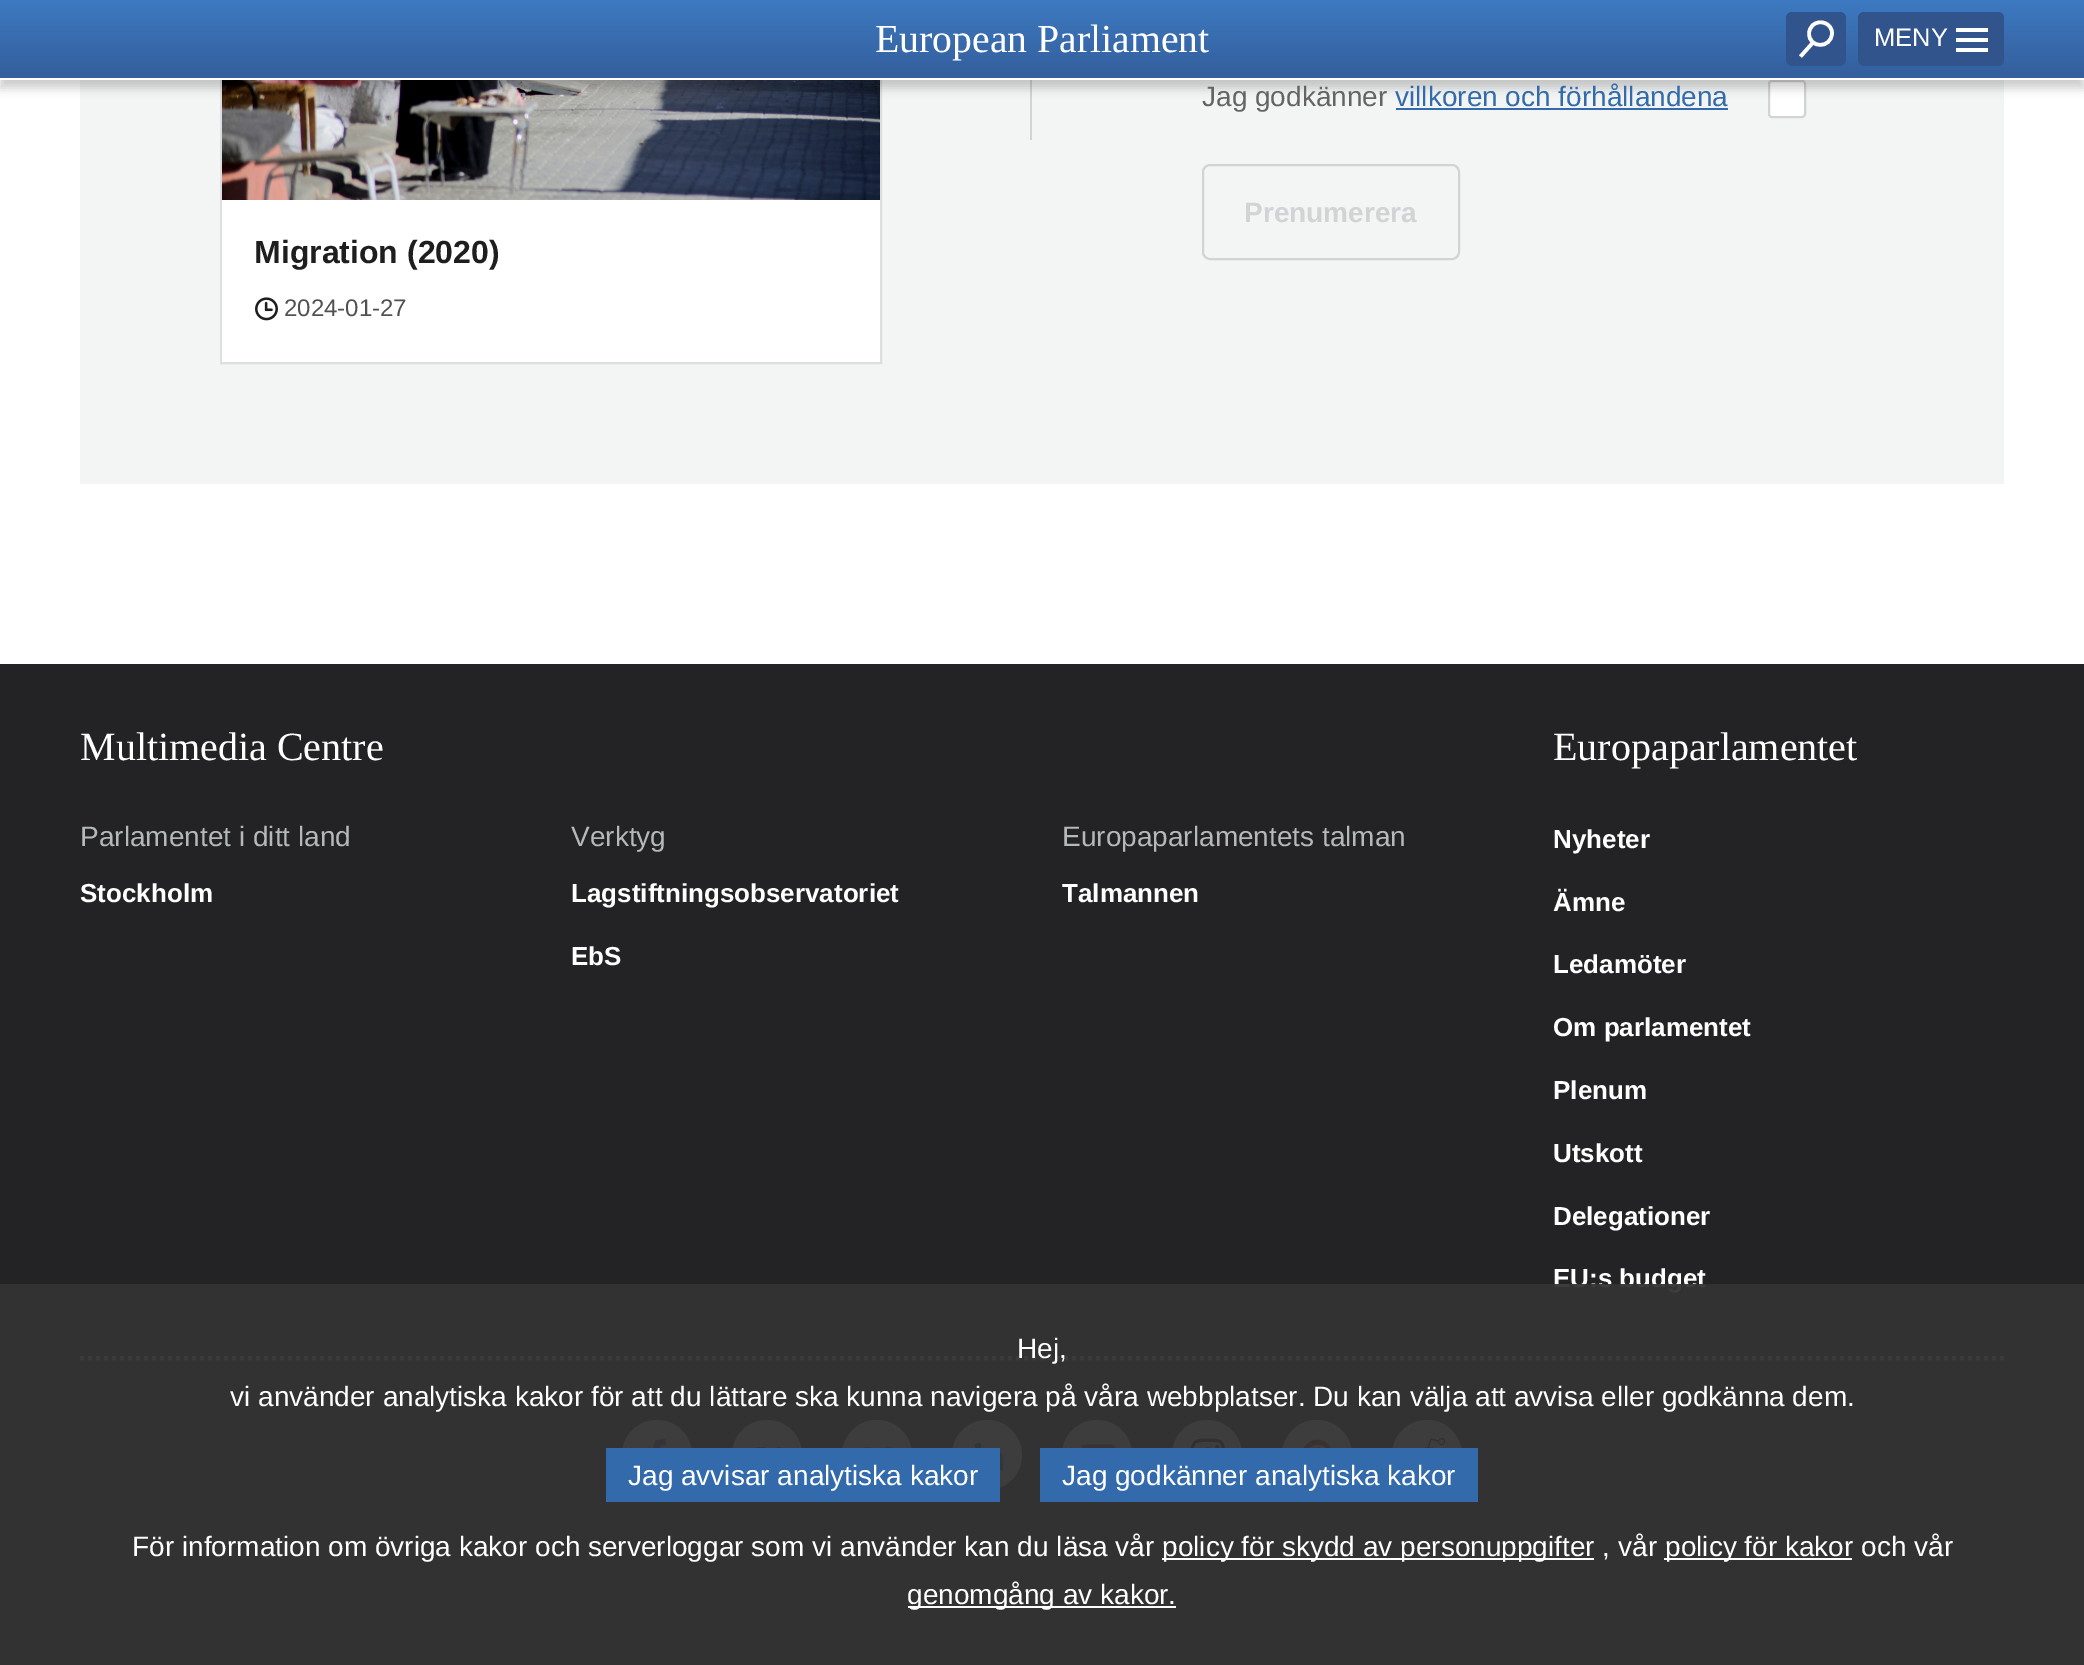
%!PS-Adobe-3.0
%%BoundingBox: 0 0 2084 1665
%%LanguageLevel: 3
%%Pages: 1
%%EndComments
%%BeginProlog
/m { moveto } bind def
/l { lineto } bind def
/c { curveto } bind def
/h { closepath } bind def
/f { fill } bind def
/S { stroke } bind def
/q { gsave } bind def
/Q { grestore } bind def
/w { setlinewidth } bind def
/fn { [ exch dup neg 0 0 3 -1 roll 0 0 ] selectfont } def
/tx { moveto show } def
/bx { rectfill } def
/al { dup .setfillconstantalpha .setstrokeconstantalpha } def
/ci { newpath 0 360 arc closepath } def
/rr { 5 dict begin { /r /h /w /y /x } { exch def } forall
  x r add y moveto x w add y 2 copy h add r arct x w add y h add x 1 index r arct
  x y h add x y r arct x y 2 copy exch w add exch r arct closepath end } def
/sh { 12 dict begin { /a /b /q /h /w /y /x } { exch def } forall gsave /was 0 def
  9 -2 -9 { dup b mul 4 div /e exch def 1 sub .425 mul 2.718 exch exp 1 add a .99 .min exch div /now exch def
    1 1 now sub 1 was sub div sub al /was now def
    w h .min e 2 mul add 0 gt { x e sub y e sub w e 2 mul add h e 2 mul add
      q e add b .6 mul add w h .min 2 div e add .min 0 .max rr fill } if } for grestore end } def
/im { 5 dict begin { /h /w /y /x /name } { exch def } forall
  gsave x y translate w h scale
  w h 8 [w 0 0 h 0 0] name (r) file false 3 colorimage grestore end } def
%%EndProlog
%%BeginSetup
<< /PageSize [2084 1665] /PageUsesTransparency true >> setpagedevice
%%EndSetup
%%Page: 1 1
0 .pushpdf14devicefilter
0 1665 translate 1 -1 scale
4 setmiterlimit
1 setgray
0 0 2084 1665 bx
0.953 0.957 0.957 setrgbcolor
80 80 1924 404 bx
0.82 0.827 0.831 setrgbcolor
1030 80 2 60 bx
1 setgray
1769 81 36 36 3 rr q f Q
0.82 0.827 0.831 setrgbcolor
2 w
S
0.863 0.871 0.875 setrgbcolor
221 -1 660 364 rectstroke
(image0.raw) 222 80 658 120 im
0 setgray
0 8 2084 80 0 5 0.2 sh
q 0 0 m 2084 0 l 2084 78 l 0 78 l h clip newpath
<< /ShadingType 2 /ColorSpace /DeviceRGB /Coords [1042 0 1042 78] /Extend [true true] /Function << /FunctionType 2 /Domain [0 1] /C0 [0.239 0.478 0.757] /C1 [0.204 0.369 0.612] /N 1 >> >> shfill Q
1 setgray
0 78 2084 2 bx
/LiberationSerif-Regular 39.75 fn
(European Parliament) 875 52 tx
0.196 0.329 0.553 setrgbcolor
1786 12 60 54 6 rr f
1 setgray
3.6 w
1809 33.5 m 1809 48.5 1831 49 1832 33.5 c 1832.5 23.5 1819.5 18.5 1812.5 25.5 c 1810.5 27.5 1809 30.5 1809 33.5 c h 1813 42.5 m 1800.5 56.5 l S
0.196 0.329 0.553 setrgbcolor
1858 12 146 54 6 rr f
/LiberationSans-Regular 25.5 fn
1 setgray
(MENY) 1874 46 tx
1956 28 32 4 bx
1956 38 32 4 bx
1956 48 32 4 bx
/LiberationSans-Regular 28 fn
0.392 setgray
(Jag godkänner) 1202 106 tx
0.196 0.416 0.671 setrgbcolor
(villkoren och förhållandena) 1395 106 tx
1396 108 332 2 bx
0.82 0.827 0.831 setrgbcolor
2 w
1203 165 256 94 7 rr S
/LiberationSans-Bold 28 fn
(Prenumerera) 1244 222 tx
1 setgray
222 200 658 162 bx
/LiberationSans-Bold 32 fn
0.118 0.118 0.122 setrgbcolor
(Migration \(2020\)) 254 263 tx
(image1.raw) 255 297 23 24 im
/LiberationSans-Regular 24 fn
0.314 0.318 0.329 setrgbcolor
(2024-01-27) 284 316 tx
0.137 0.133 0.145 setrgbcolor
0 664 2084 1001 bx
0.82 0.827 0.831 setrgbcolor
4 w
[4 4] 0 setdash
80 1358 m 2004 1358 l S
/LiberationSerif-Regular 40 fn
1 setgray
(Multimedia Centre) 80 760 tx
/LiberationSans-Regular 28 fn
0.71 0.725 0.729 setrgbcolor
(Parlamentet i ditt land) 80 846 tx
/LiberationSans-Bold 26 fn
1 setgray
(Stockholm) 80 902 tx
/LiberationSans-Regular 28 fn
0.71 0.725 0.729 setrgbcolor
(Verktyg) 571 846 tx
/LiberationSans-Bold 26 fn
1 setgray
(Lagstiftningsobservatoriet) 571 902 tx
(EbS) 571 965 tx
/LiberationSans-Regular 28 fn
0.71 0.725 0.729 setrgbcolor
(Europaparlamentets talman) 1062 846 tx
/LiberationSans-Bold 26 fn
1 setgray
(Talmannen) 1062 902 tx
/LiberationSerif-Regular 40 fn
(Europaparlamentet) 1553 760 tx
/LiberationSans-Bold 26 fn
(Nyheter) 1553 848 tx
(Ämne) 1553 911 tx
(Ledamöter) 1553 973 tx
(Om parlamentet) 1553 1036 tx
(Plenum) 1553 1099 tx
(Utskott) 1553 1162 tx
(Delegationer) 1553 1225 tx
(EU:s budget) 1553 1287 tx
657 1455 35 ci f
(image2.raw) 653 1439 13 9 im
767 1455 35 ci f
(image3.raw) 756 1447 25 1 im
877 1455 35 ci f
(image4.raw) 863 1447 30 1 im
987 1455 35 ci f
(image5.raw) 974 1442 30 28 im
1097 1455 35 ci f
(image6.raw) 1081 1444 35 4 im
1207 1455 35 ci f
(image7.raw) 1191 1438 34 10 im
1317 1455 35 ci f
(image8.raw) 1304 1439 27 9 im
1427 1455 35 ci f
(image9.raw) 1423 1438 23 10 im
0.95 al
0.2 setgray
0 1284 2084 381 bx
/LiberationSans-Regular 28 fn
1 al
1 setgray
(Hej,) 1017 1358 tx
(vi använder analytiska kakor för att du lättare ska kunna navigera på våra webbplatser. Du kan välja att avvisa eller godkänna dem.) 230 1406 tx
0.196 0.416 0.671 setrgbcolor
606 1448 394 54 bx
1 setgray
(Jag avvisar analytiska kakor) 628 1485 tx
0.196 0.416 0.671 setrgbcolor
1040 1448 438 54 bx
1 setgray
(Jag godkänner analytiska kakor) 1062 1485 tx
(För information om övriga kakor och serverloggar som vi använder kan du läsa vår) 132 1556 tx
1162 1558 432 2 bx
(policy för skydd av personuppgifter , vår) 1162 1556 tx
1664 1558 188 2 bx
(policy för kakor och vår) 1665 1556 tx
908 1606 268 2 bx
(genomgång av kakor.) 907 1604 tx
.poppdf14devicefilter showpage
%%EOF
